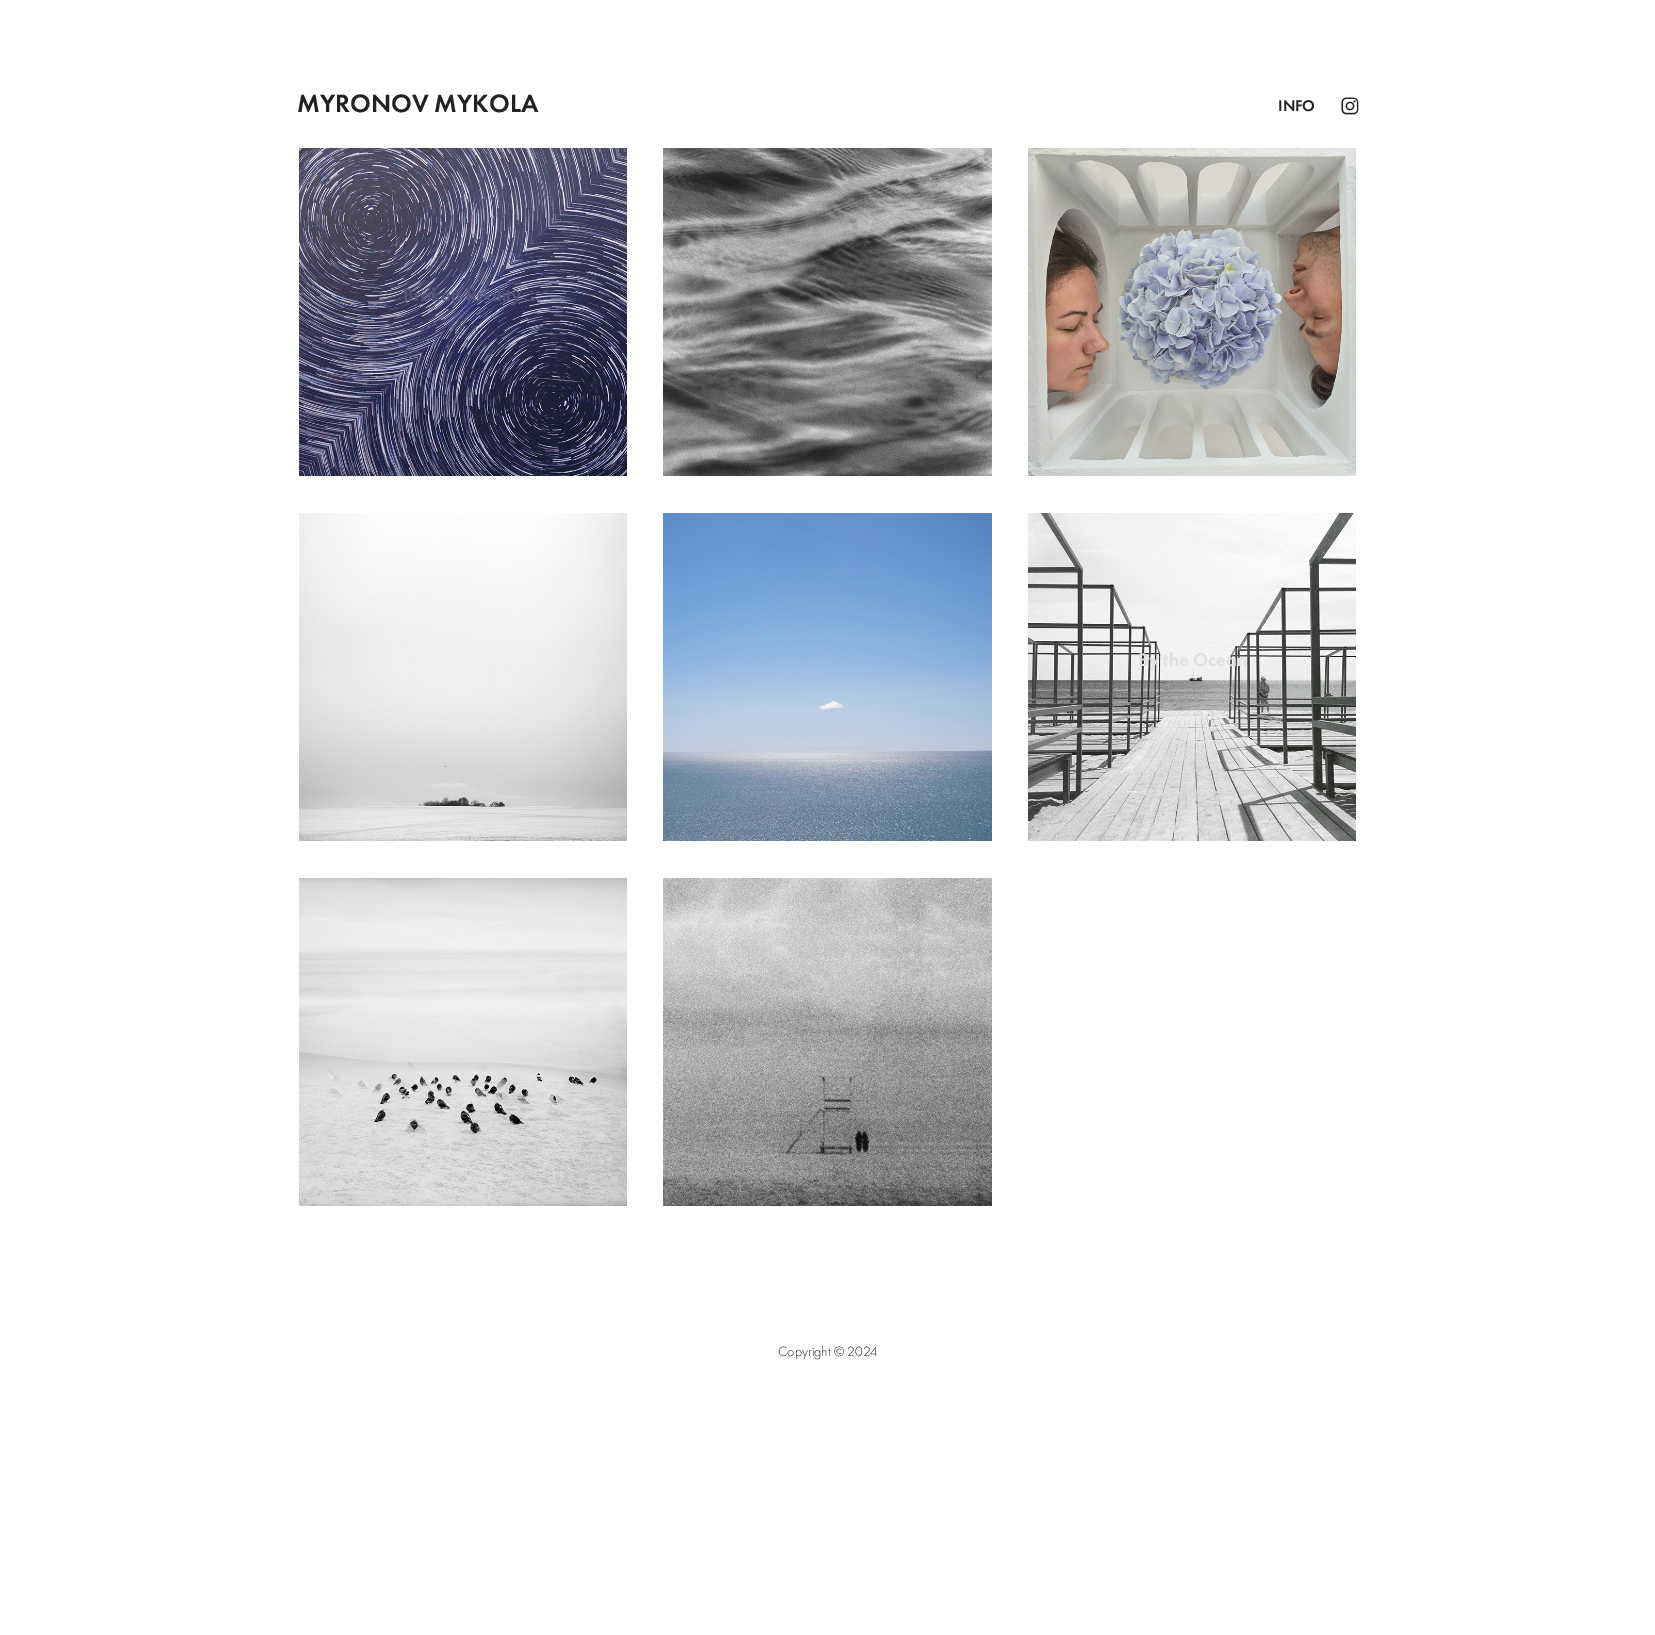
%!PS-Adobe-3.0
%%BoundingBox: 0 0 1655 1635
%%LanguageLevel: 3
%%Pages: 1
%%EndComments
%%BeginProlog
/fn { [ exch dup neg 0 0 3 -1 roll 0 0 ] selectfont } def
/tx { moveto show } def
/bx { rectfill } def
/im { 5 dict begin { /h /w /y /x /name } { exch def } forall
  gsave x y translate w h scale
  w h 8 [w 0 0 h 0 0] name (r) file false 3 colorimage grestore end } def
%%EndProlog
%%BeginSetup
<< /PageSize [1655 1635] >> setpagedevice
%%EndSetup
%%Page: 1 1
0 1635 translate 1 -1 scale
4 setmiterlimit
1 setgray
0 0 1655 1635 bx
/FuturaPT-Medium 26 fn
0.133 setgray
(MYRONOV MYKOLA) 297 112 tx
/FuturaPT-Medium 16 fn
(INFO) 1278 111 tx
(image0.raw) 1341 97 18 18 im
(image1.raw) 299 148 328 328 im
/FuturaPT-Medium 19 fn
0.333 0.333 0.49 setrgbcolor
(Broken Reality) 403 301 tx
/FuturaPT-Light 14 fn
(2023) 447 335 tx
(image2.raw) 663 148 329 328 im
(image3.raw) 1028 148 328 328 im
/FuturaPT-Medium 19 fn
0.62 0.651 0.714 setrgbcolor
(i) 1215 301 tx
/FuturaPT-Light 14 fn
0.573 0.596 0.663 setrgbcolor
(2023) 1177 335 tx
(image4.raw) 299 513 328 328 im
(image5.raw) 663 513 329 328 im
(image6.raw) 1028 513 328 328 im
/FuturaPT-Medium 19 fn
0.878 setgray
(By the Ocean) 1138 666 tx
(image7.raw) 299 878 328 328 im
(image8.raw) 663 878 329 328 im
/FuturaPT-Light 14 fn
0.133 setgray
(Copyright © 2024) 778 1356 tx
showpage
%%EOF
